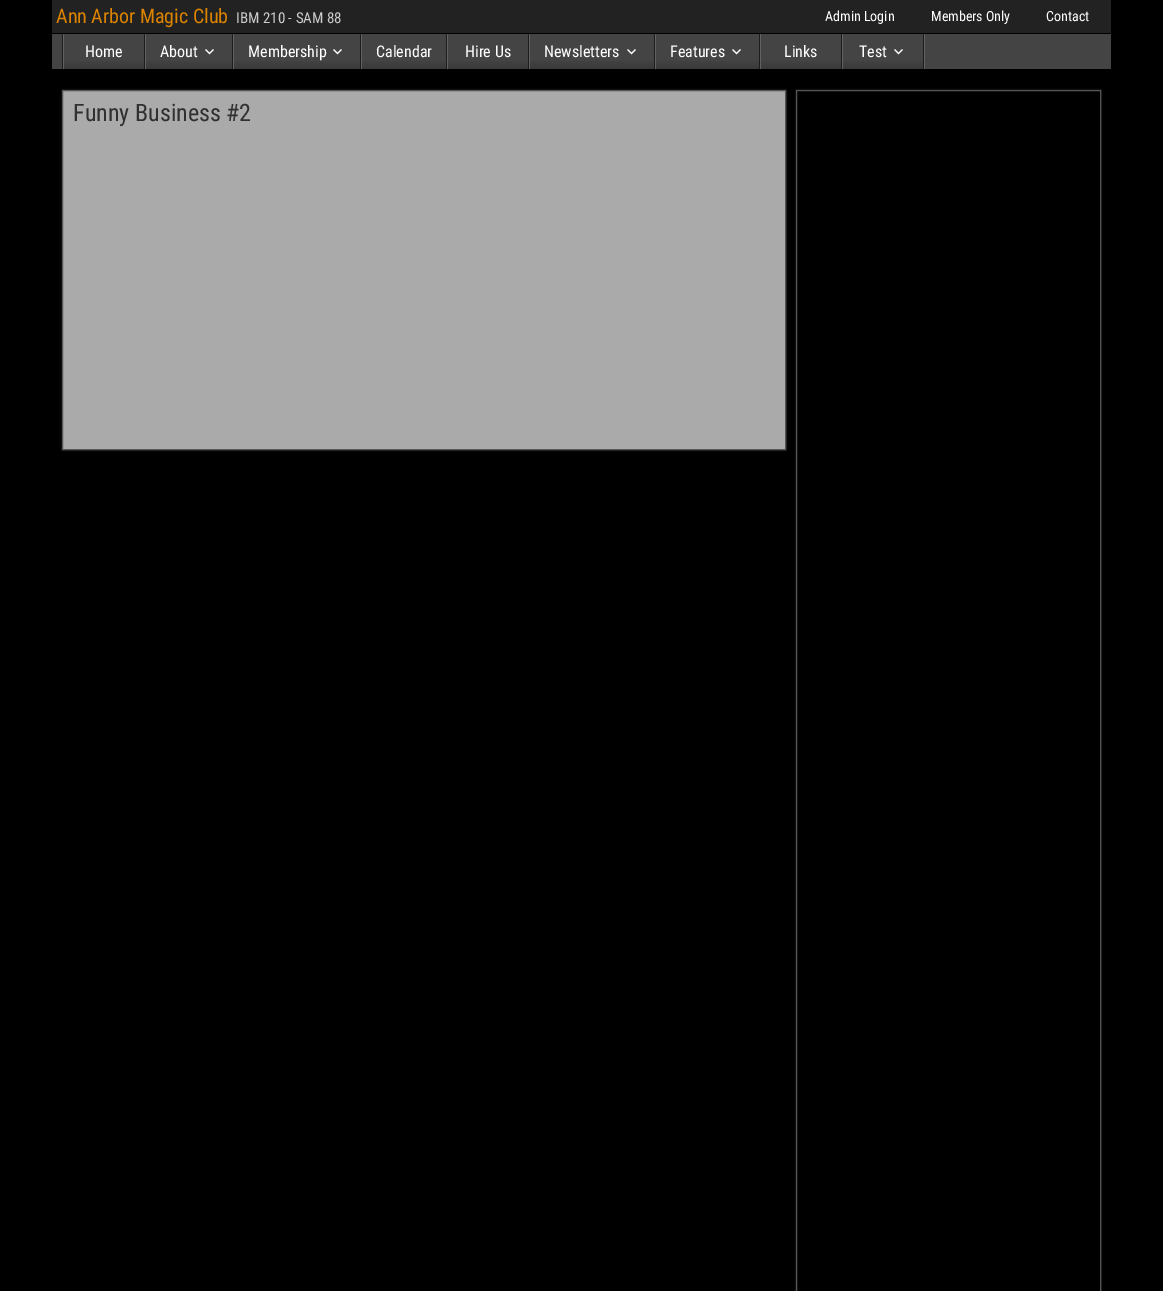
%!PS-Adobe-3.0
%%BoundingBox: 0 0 1163 1291
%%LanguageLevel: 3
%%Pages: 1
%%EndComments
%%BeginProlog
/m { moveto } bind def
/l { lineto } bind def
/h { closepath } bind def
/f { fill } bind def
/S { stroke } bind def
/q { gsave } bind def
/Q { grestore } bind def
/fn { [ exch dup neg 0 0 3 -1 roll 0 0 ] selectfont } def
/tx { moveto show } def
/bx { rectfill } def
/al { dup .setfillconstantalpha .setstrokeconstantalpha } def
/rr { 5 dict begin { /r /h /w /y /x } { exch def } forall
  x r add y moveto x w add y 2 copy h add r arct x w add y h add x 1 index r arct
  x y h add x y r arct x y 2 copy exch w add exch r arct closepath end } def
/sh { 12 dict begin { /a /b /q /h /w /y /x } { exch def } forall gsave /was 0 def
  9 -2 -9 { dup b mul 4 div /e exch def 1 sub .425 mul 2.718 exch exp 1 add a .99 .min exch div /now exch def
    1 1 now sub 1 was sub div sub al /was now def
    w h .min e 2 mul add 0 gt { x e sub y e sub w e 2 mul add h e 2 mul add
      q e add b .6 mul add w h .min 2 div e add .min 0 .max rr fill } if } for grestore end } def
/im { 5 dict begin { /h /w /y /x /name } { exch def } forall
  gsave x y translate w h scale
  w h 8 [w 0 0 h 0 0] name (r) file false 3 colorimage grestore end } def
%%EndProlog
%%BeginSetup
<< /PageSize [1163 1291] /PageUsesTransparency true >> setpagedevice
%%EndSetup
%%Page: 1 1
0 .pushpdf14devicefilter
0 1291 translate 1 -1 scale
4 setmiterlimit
0 setgray
0 0 1163 1291 bx
0.133 setgray
52 0 1059 33 bx
/RobotoCondensed-Regular 20 fn
0.863 0.514 0 setrgbcolor
(Ann Arbor Magic Club) 56 23 tx
/RobotoCondensed-Regular 15 fn
0.8 setgray
(IBM 210 - SAM 88) 236 23 tx
/RobotoCondensed-Regular 14 fn
1 setgray
(Admin Login) 825 21 tx
(Members Only) 931 21 tx
(Contact) 1046 21 tx
0.267 setgray
52 34 1059 35 bx
0.384 setgray
924 34 1 35 bx
0.11 setgray
62 34 1 35 bx
q 64 61 m 144 61 l 144 69 l 64 69 l h clip newpath
<< /ShadingType 2 /ColorSpace /DeviceRGB /Coords [104 34 104 69] /Extend [true true] /Function << /FunctionType 3 /Domain [0 1] /Functions [<< /FunctionType 2 /Domain [0 1] /C0 [0.267 0.267 0.267] /C1 [0.267 0.267 0.267] /N 1 >> << /FunctionType 2 /Domain [0 1] /C0 [0.267 0.267 0.267] /C1 [0.227 0.227 0.227] /N 1 >>] /Bounds [0.7] /Encode [0 1 0 1] >> >> shfill Q
144 34 1 35 bx
0.384 setgray
63 34 1 35 bx
/RobotoCondensed-Regular 16 fn
1 setgray
(Home) 85 57 tx
q 146 61 m 232 61 l 232 69 l 146 69 l h clip newpath
<< /ShadingType 2 /ColorSpace /DeviceRGB /Coords [189 34 189 69] /Extend [true true] /Function << /FunctionType 3 /Domain [0 1] /Functions [<< /FunctionType 2 /Domain [0 1] /C0 [0.267 0.267 0.267] /C1 [0.267 0.267 0.267] /N 1 >> << /FunctionType 2 /Domain [0 1] /C0 [0.267 0.267 0.267] /C1 [0.227 0.227 0.227] /N 1 >>] /Bounds [0.7] /Encode [0 1 0 1] >> >> shfill Q
0.11 setgray
232 34 1 35 bx
0.384 setgray
145 34 1 35 bx
1 setgray
(About) 160 57 tx
(image0.raw) 205 49 9 6 im
q 234 61 m 360 61 l 360 69 l 234 69 l h clip newpath
<< /ShadingType 2 /ColorSpace /DeviceRGB /Coords [297 34 297 69] /Extend [true true] /Function << /FunctionType 3 /Domain [0 1] /Functions [<< /FunctionType 2 /Domain [0 1] /C0 [0.267 0.267 0.267] /C1 [0.267 0.267 0.267] /N 1 >> << /FunctionType 2 /Domain [0 1] /C0 [0.267 0.267 0.267] /C1 [0.227 0.227 0.227] /N 1 >>] /Bounds [0.7] /Encode [0 1 0 1] >> >> shfill Q
0.11 setgray
360 34 1 35 bx
0.384 setgray
233 34 1 35 bx
1 setgray
(Membership) 248 57 tx
(image0.raw) 333 49 9 6 im
q 362 61 m 446 61 l 446 69 l 362 69 l h clip newpath
<< /ShadingType 2 /ColorSpace /DeviceRGB /Coords [404 34 404 69] /Extend [true true] /Function << /FunctionType 3 /Domain [0 1] /Functions [<< /FunctionType 2 /Domain [0 1] /C0 [0.267 0.267 0.267] /C1 [0.267 0.267 0.267] /N 1 >> << /FunctionType 2 /Domain [0 1] /C0 [0.267 0.267 0.267] /C1 [0.227 0.227 0.227] /N 1 >>] /Bounds [0.7] /Encode [0 1 0 1] >> >> shfill Q
0.11 setgray
446 34 1 35 bx
0.384 setgray
361 34 1 35 bx
1 setgray
(Calendar) 376 57 tx
q 448 61 m 528 61 l 528 69 l 448 69 l h clip newpath
<< /ShadingType 2 /ColorSpace /DeviceRGB /Coords [488 34 488 69] /Extend [true true] /Function << /FunctionType 3 /Domain [0 1] /Functions [<< /FunctionType 2 /Domain [0 1] /C0 [0.267 0.267 0.267] /C1 [0.267 0.267 0.267] /N 1 >> << /FunctionType 2 /Domain [0 1] /C0 [0.267 0.267 0.267] /C1 [0.227 0.227 0.227] /N 1 >>] /Bounds [0.7] /Encode [0 1 0 1] >> >> shfill Q
0.11 setgray
528 34 1 35 bx
0.384 setgray
447 34 1 35 bx
1 setgray
(Hire Us) 465 57 tx
q 530 61 m 654 61 l 654 69 l 530 69 l h clip newpath
<< /ShadingType 2 /ColorSpace /DeviceRGB /Coords [592 34 592 69] /Extend [true true] /Function << /FunctionType 3 /Domain [0 1] /Functions [<< /FunctionType 2 /Domain [0 1] /C0 [0.267 0.267 0.267] /C1 [0.267 0.267 0.267] /N 1 >> << /FunctionType 2 /Domain [0 1] /C0 [0.267 0.267 0.267] /C1 [0.227 0.227 0.227] /N 1 >>] /Bounds [0.7] /Encode [0 1 0 1] >> >> shfill Q
0.11 setgray
654 34 1 35 bx
0.384 setgray
529 34 1 35 bx
1 setgray
(Newsletters) 544 57 tx
(image0.raw) 627 49 9 6 im
q 656 61 m 759 61 l 759 69 l 656 69 l h clip newpath
<< /ShadingType 2 /ColorSpace /DeviceRGB /Coords [708 34 708 69] /Extend [true true] /Function << /FunctionType 3 /Domain [0 1] /Functions [<< /FunctionType 2 /Domain [0 1] /C0 [0.267 0.267 0.267] /C1 [0.267 0.267 0.267] /N 1 >> << /FunctionType 2 /Domain [0 1] /C0 [0.267 0.267 0.267] /C1 [0.227 0.227 0.227] /N 1 >>] /Bounds [0.7] /Encode [0 1 0 1] >> >> shfill Q
0.11 setgray
759 34 1 35 bx
0.384 setgray
655 34 1 35 bx
1 setgray
(Features) 670 57 tx
(image0.raw) 732 49 9 6 im
q 761 61 m 841 61 l 841 69 l 761 69 l h clip newpath
<< /ShadingType 2 /ColorSpace /DeviceRGB /Coords [801 34 801 69] /Extend [true true] /Function << /FunctionType 3 /Domain [0 1] /Functions [<< /FunctionType 2 /Domain [0 1] /C0 [0.267 0.267 0.267] /C1 [0.267 0.267 0.267] /N 1 >> << /FunctionType 2 /Domain [0 1] /C0 [0.267 0.267 0.267] /C1 [0.227 0.227 0.227] /N 1 >>] /Bounds [0.7] /Encode [0 1 0 1] >> >> shfill Q
0.11 setgray
841 34 1 35 bx
0.384 setgray
760 34 1 35 bx
1 setgray
(Links) 784 57 tx
q 843 61 m 923 61 l 923 69 l 843 69 l h clip newpath
<< /ShadingType 2 /ColorSpace /DeviceRGB /Coords [883 34 883 69] /Extend [true true] /Function << /FunctionType 3 /Domain [0 1] /Functions [<< /FunctionType 2 /Domain [0 1] /C0 [0.267 0.267 0.267] /C1 [0.267 0.267 0.267] /N 1 >> << /FunctionType 2 /Domain [0 1] /C0 [0.267 0.267 0.267] /C1 [0.227 0.227 0.227] /N 1 >>] /Bounds [0.7] /Encode [0 1 0 1] >> >> shfill Q
0.11 setgray
923 34 1 35 bx
0.384 setgray
842 34 1 35 bx
1 setgray
(Test) 859 57 tx
(image0.raw) 894 49 9 6 im
0.2 setgray
62 90 724 360 0 1 1 sh
0.667 setgray
62.5 90.5 m 785.5 90.5 l 785.5 449.5 l 62.5 449.5 l h q f Q
0.333 setgray
S
/RobotoCondensed-Regular 24 fn
0.188 setgray
(Funny Business #2) 73 121 tx
q
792 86 m 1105 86 l 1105 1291 l 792 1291 l h 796 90 m 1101 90 l 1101 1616 l 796 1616 l h eoclip newpath
0.2 setgray
796 90 305 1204 0 1 1 sh
Q
0.333 setgray
796.5 90.5 304 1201 rectstroke
.poppdf14devicefilter showpage
%%EOF
